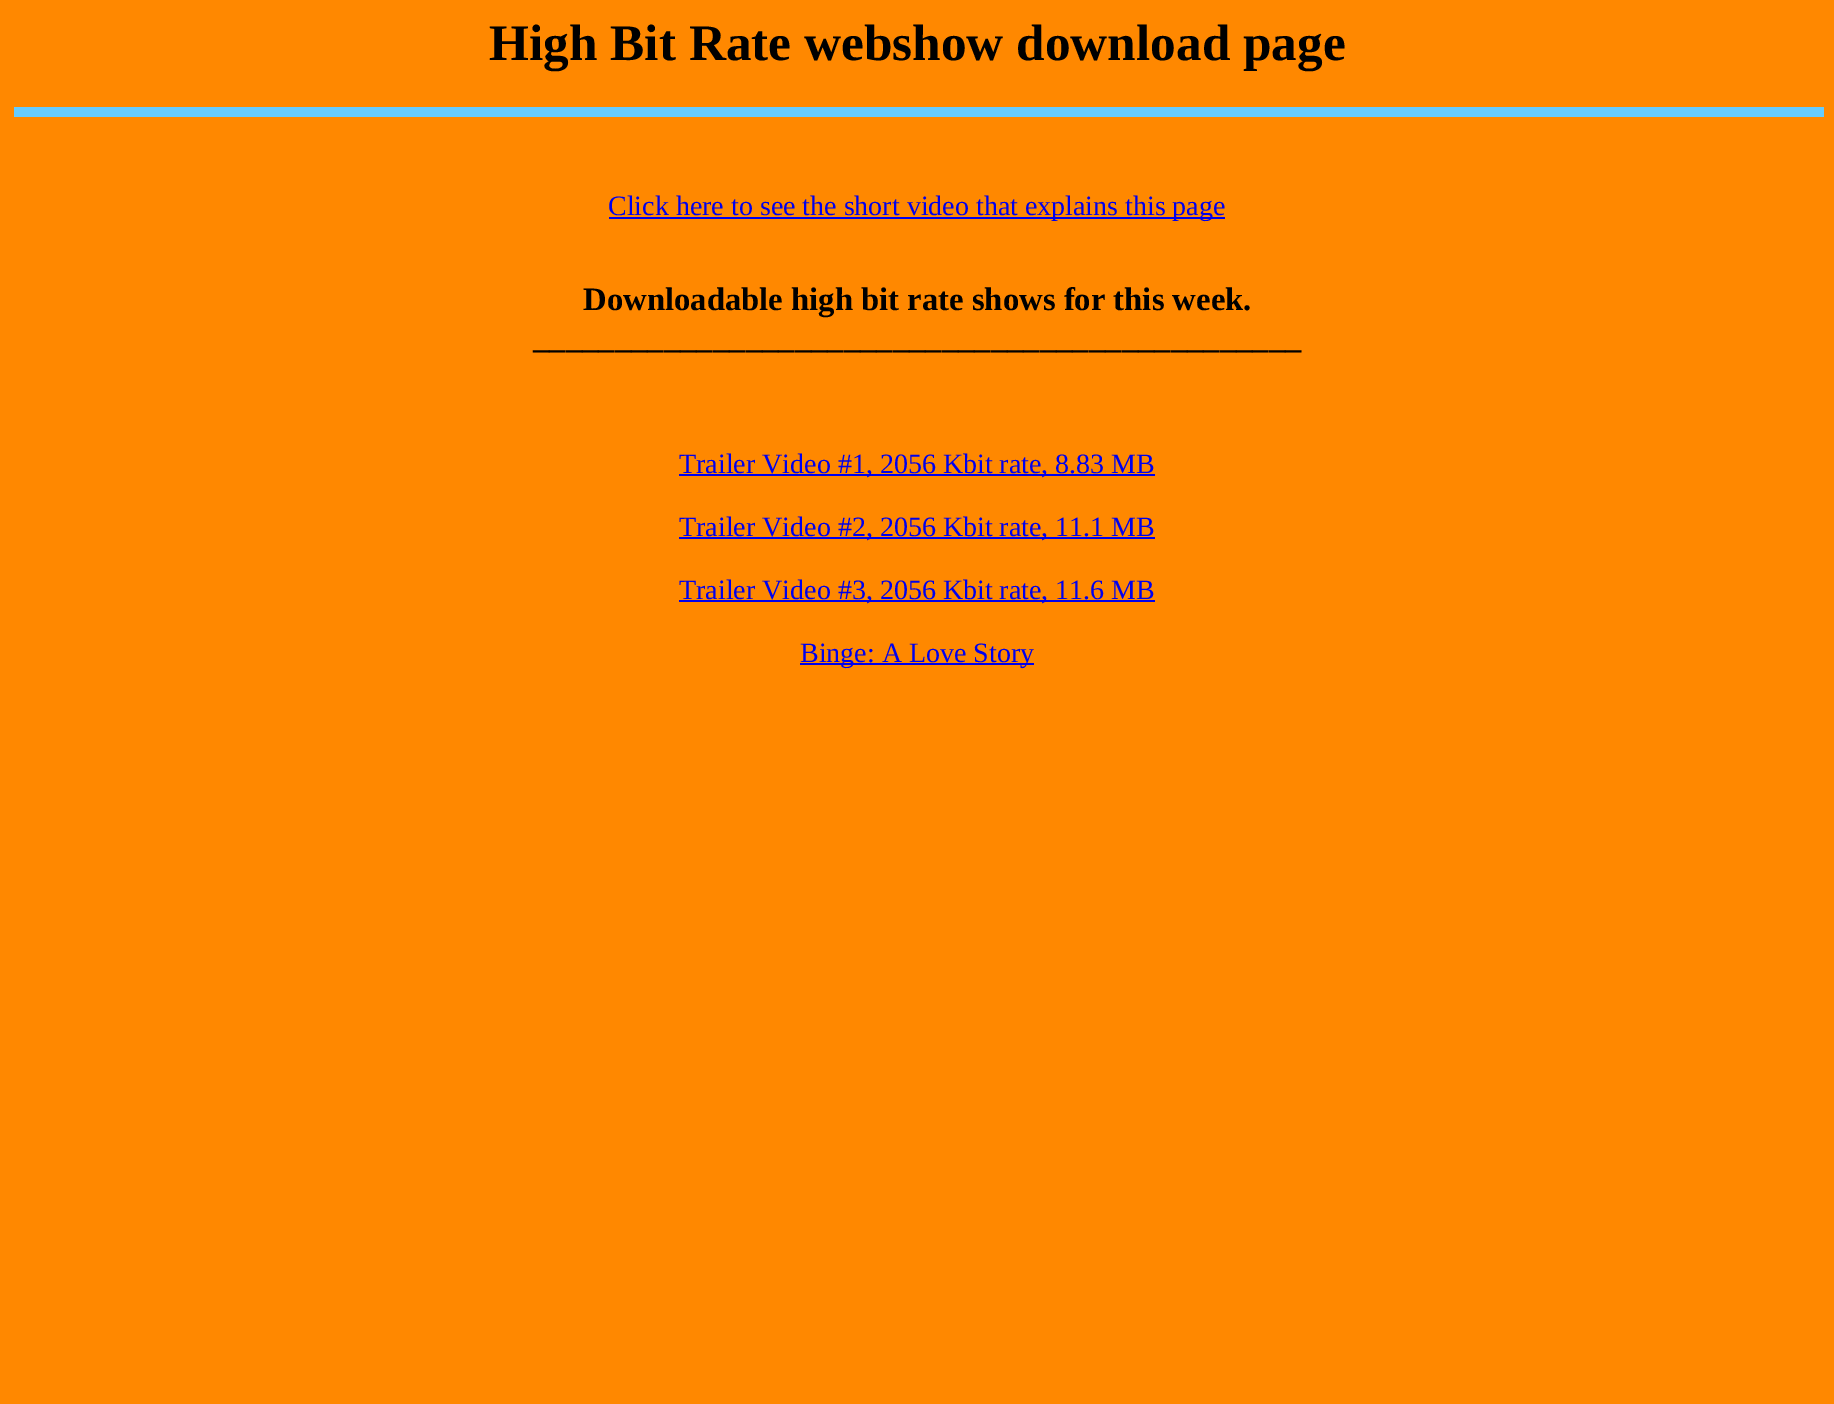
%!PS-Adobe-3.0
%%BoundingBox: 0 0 1834 1404
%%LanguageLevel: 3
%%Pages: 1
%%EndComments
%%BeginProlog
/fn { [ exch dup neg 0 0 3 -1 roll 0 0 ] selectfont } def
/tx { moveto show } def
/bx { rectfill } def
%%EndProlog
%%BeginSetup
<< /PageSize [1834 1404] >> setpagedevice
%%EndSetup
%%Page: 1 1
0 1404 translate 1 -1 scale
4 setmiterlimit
1 0.533 0 setrgbcolor
0 0 1834 1404 bx
/LiberationSerif-Bold 51.3 fn
0 setgray
(High Bit Rate webshow download page) 489 60 tx
0.4 0.8 1 setrgbcolor
14 107 1810 10 bx
0 0 0.933 setrgbcolor
609 217 616 2 bx
/LiberationSerif-Regular 28 fn
(Click here to see the short video that explains this page) 608 215 tx
/LiberationSerif-Bold 32.7 fn
0 setgray
(Downloadable high bit rate shows for this week.) 583 310 tx
(_______________________________________________) 533 348 tx
0 0 0.933 setrgbcolor
679 474 476 2 bx
/LiberationSerif-Regular 28 fn
(Trailer Video #1, 2056 Kbit rate, 8.83 MB) 679 473 tx
679 537 476 2 bx
(Trailer Video #2, 2056 Kbit rate, 11.1 MB) 679 536 tx
679 600 476 2 bx
(Trailer Video #3, 2056 Kbit rate, 11.6 MB) 679 599 tx
800 663 234 2 bx
(Binge: A Love Story) 800 662 tx
showpage
%%EOF
